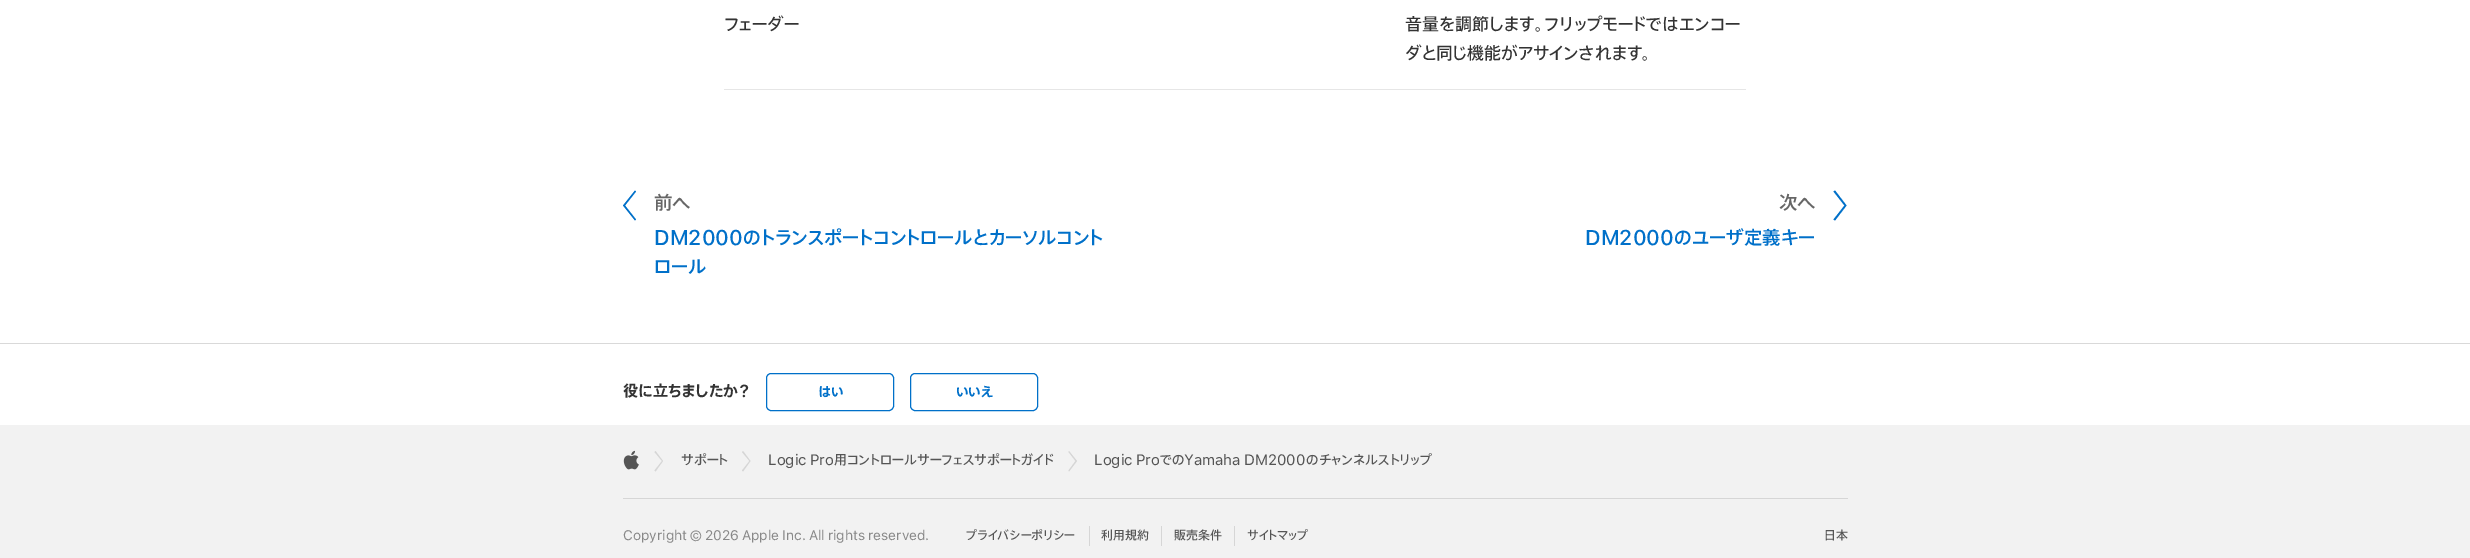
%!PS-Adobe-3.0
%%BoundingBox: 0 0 2470 558
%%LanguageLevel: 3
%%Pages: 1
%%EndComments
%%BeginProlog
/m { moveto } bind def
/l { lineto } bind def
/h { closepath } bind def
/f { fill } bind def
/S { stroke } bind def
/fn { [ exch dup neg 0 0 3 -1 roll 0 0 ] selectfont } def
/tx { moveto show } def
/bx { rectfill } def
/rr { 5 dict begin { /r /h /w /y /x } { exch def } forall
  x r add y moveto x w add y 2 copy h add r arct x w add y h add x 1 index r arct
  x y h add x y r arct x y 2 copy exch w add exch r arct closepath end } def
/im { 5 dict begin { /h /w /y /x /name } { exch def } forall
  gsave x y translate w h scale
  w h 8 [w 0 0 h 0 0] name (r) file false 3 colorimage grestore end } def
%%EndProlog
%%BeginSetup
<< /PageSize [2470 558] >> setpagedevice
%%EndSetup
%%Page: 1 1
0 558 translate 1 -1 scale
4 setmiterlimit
1 setgray
0 0 2470 558 bx
0.902 setgray
724 89 1022 1 bx
/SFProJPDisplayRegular-Regular 19.6 fn
0.2 setgray
(フェーダー) 724 31 tx
(音量を調節します。フリップモードではエンコー) 1405 31 tx
(ダと同じ機能がアサインされます。) 1405 60 tx
0 0.439 0.788 setrgbcolor
635 190.5 m 623 205.5 l 635 220.5 l 636 219.5 l 625 205.5 l 636 191.5 l h f
/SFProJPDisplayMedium-Medium 21.25 fn
0.4 setgray
(前へ) 654 210 tx
/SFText-Medium 21.25 fn
0 0.439 0.788 setrgbcolor
(DM2000) 654 245 tx
/SFProJPDisplayMedium-Medium 21.25 fn
(のトランスポートコントロールとカーソルコント) 743 245 tx
(ロール) 654 274 tx
0.4 setgray
(次へ) 1779 210 tx
0 0.439 0.788 setrgbcolor
1833.5 191.5 m 1844.5 205.5 l 1833.5 219.5 l 1835 220.5 l 1846.5 205.5 l 1835 190.5 l h f
/SFText-Medium 21.25 fn
(DM2000) 1585 245 tx
/SFProJPDisplayMedium-Medium 21.25 fn
(のユーザ定義キー) 1674 245 tx
0.851 setgray
0 343 2470 1 bx
/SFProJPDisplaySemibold-SemiBold 17.5 fn
0.2 setgray
(役に立ちましたか？) 623 397 tx
0 0.439 0.788 setrgbcolor
766.5 373.5 127 37 4.5 rr S
/SFProJPDisplaySemibold-SemiBold 15 fn
(はい) 818 397 tx
910.5 373.5 127 37 4.5 rr S
(いいえ) 956 397 tx
0.949 setgray
0 425 2470 133 bx
(image0.raw) 623 450 16 20 im
0.839 setgray
655.5 451 m 663 461 l 655.5 471.5 l 654.5 470.5 l 662 461 l 654.5 452 l h f
/SFProJPDisplayRegular-Regular 15 fn
0.333 setgray
(サポート) 681 465 tx
0.839 setgray
743 451 m 750.5 461 l 743 471.5 l 742 470.5 l 749.5 461 l 742 452 l h f
/SFText-Regular 15 fn
0.333 setgray
768 465 m -1 0 32 (Logic Pro) widthshow
/SFProJPDisplayRegular-Regular 15 fn
(用コントロールサーフェスサポートガイド) 834 465 tx
0.839 setgray
1069 451 m 1077 461 l 1069 471.5 l 1068.5 470.5 l 1075.5 461 l 1068.5 452 l h f
/SFText-Regular 15 fn
0.333 setgray
1094 465 m -1 0 32 (Logic Pro) widthshow
/SFProJPDisplayRegular-Regular 15 fn
(での) 1160 465 tx
/SFText-Regular 15 fn
1184 465 m -1 0 32 (Yamaha DM2000) widthshow
/SFProJPDisplayRegular-Regular 15 fn
(のチャンネルストリップ) 1306 465 tx
0.839 setgray
623 498 1225 1 bx
/SFText-Regular 13.8 fn
0.533 setgray
623 540 m -1 0 32 (Copyright © 2026 Apple Inc. All rights reserved.) widthshow
0.839 setgray
1089 526 1 20 bx
/SFProJPDisplayRegular-Regular 13.8 fn
0.333 setgray
(プライバシーポリシー) 966 540 tx
0.839 setgray
1161 526 1 20 bx
0.333 setgray
(利用規約) 1101 540 tx
0.839 setgray
1234 526 1 20 bx
0.333 setgray
(販売条件) 1174 540 tx
(サイトマップ) 1247 540 tx
(日本) 1824 540 tx
showpage
%%EOF
